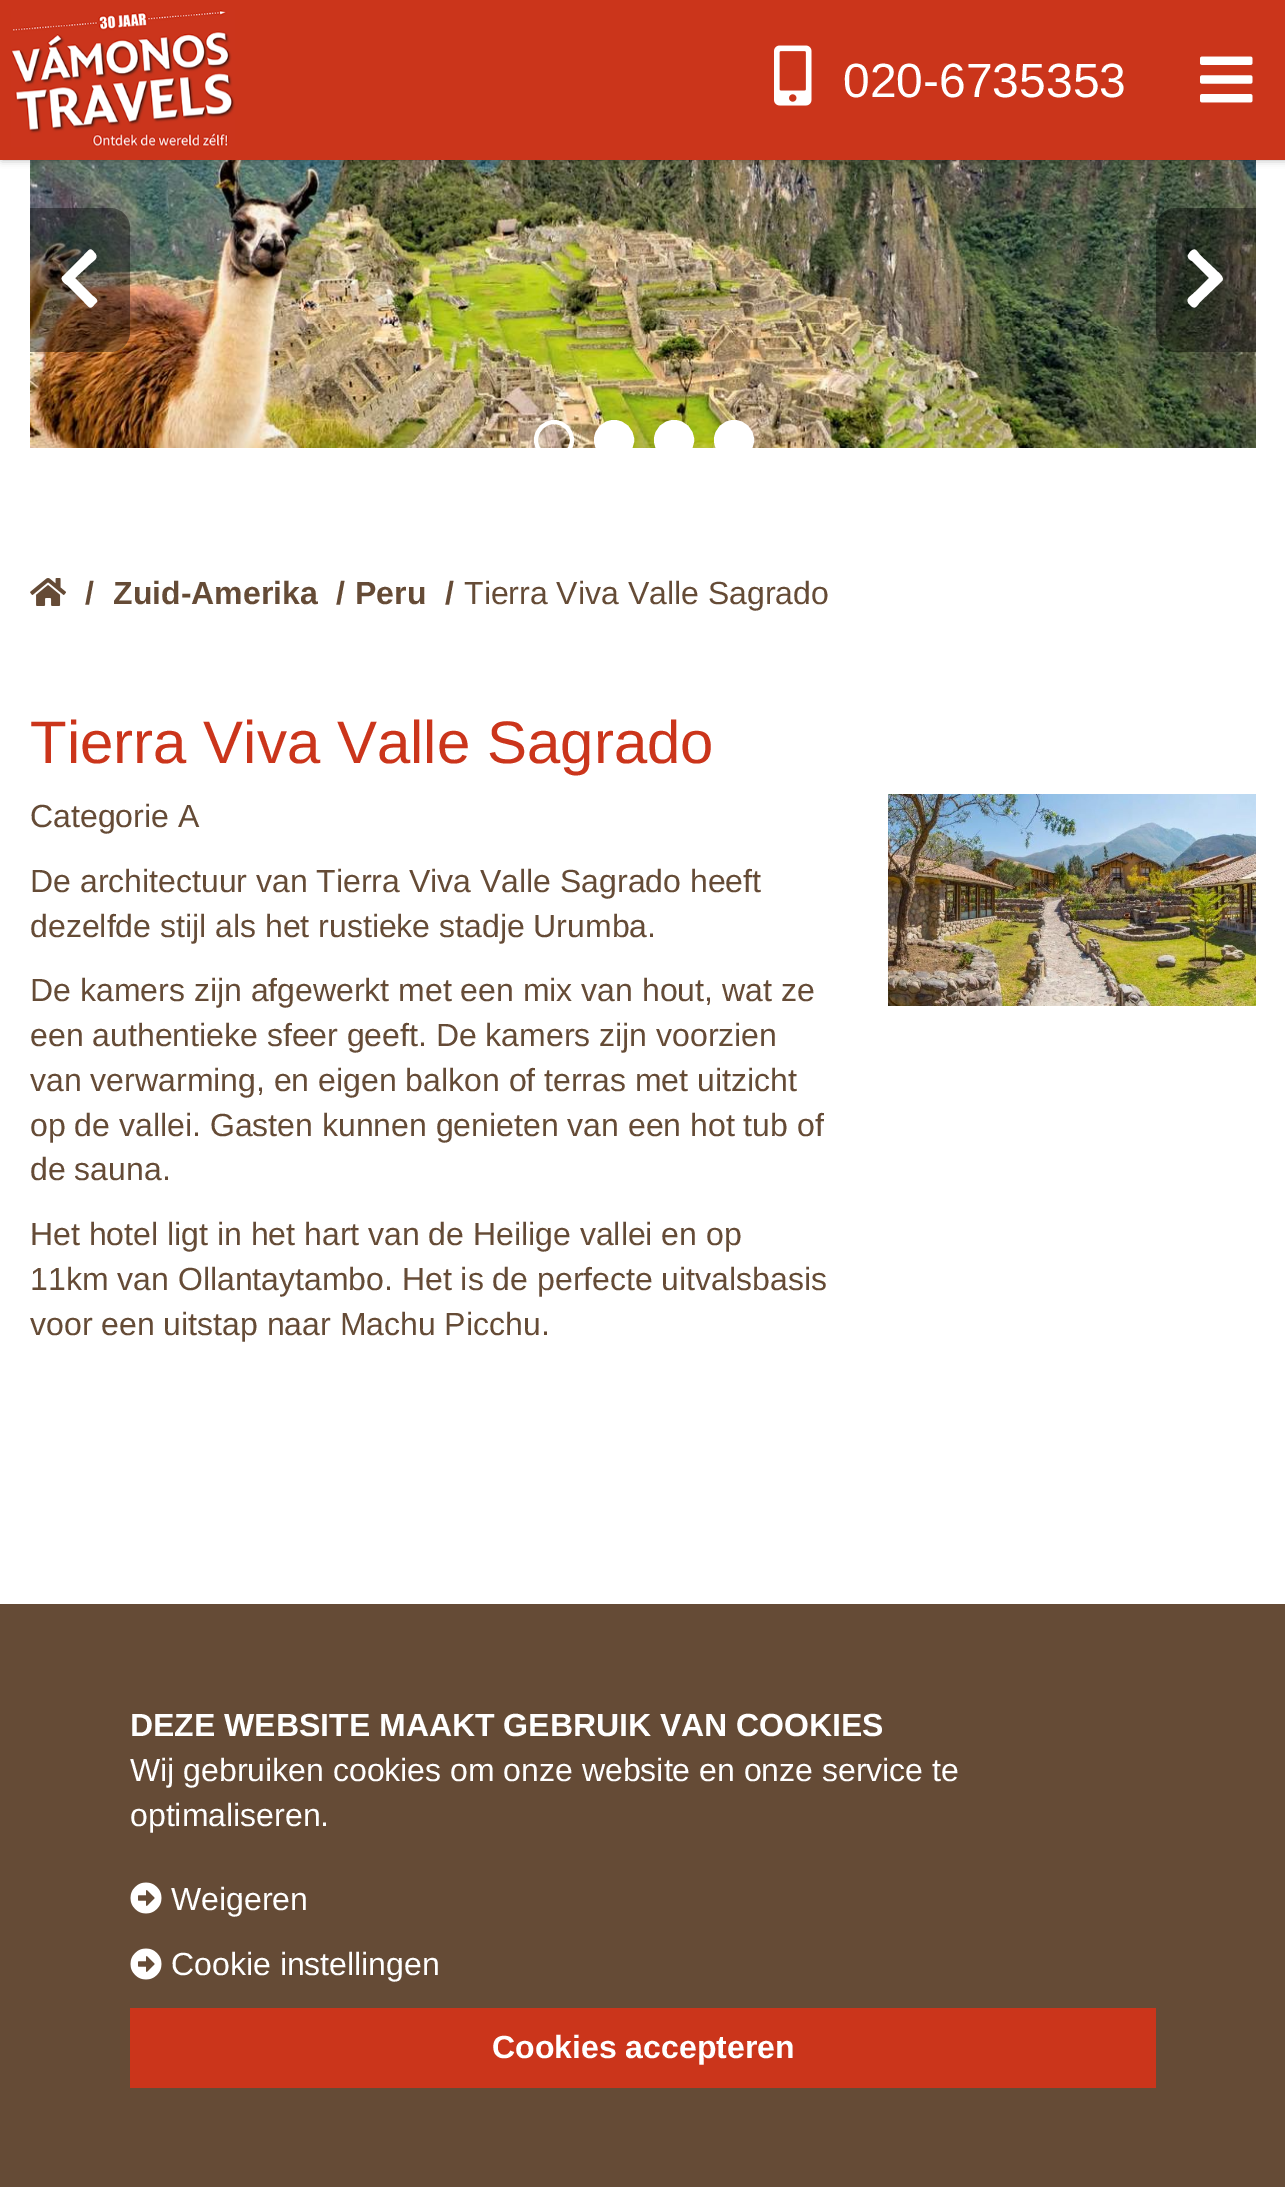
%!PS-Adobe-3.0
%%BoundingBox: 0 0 1285 2187
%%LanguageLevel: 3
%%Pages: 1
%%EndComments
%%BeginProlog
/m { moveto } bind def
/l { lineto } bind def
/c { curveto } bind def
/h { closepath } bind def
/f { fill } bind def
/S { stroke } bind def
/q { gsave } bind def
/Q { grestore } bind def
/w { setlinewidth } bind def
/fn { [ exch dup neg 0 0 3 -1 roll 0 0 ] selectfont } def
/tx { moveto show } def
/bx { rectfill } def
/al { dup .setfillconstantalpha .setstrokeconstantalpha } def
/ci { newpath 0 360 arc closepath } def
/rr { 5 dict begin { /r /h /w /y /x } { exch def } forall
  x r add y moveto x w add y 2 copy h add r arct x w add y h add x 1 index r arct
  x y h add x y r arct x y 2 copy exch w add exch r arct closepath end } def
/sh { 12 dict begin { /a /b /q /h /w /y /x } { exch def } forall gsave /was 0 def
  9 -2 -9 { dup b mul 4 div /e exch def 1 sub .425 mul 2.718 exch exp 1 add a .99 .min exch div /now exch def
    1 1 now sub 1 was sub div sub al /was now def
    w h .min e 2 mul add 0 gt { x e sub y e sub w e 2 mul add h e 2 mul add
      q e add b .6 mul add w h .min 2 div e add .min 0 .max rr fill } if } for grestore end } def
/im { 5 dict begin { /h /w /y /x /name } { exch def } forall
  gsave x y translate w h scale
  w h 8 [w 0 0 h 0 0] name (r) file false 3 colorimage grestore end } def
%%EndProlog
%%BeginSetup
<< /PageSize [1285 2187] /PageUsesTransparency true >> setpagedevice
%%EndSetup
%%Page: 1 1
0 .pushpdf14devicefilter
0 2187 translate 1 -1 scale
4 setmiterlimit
1 setgray
0 0 1285 2187 bx
(image3.raw) 30 160 1226 288 im
0 setgray
2 0 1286 160 0 4 0.3 sh
0.796 0.208 0.106 setrgbcolor
0 0 1285 160 bx
(image0.raw) 11 10 224 137 im
(image1.raw) 774 45 38 61 im
/LiberationSans-Regular 48 fn
1 setgray
(020-6735353) 843 97 tx
(image2.raw) 1200 56 53 47 im
0.4 al
0 setgray
30 208 m 110 208 l 121 208 130 217 130 228 c 130 332 l 130 343 121 352 110 352 c 30 352 l h f
1 al
1 setgray
63 276 m 84 255 l 89 250 90 247 94 252 c 100 258 94 260 89 265 c 75 278 l 93 296 l 94 297 98 299 97 302 c 94 305 l 90 310 89 307 84 302 c 67 285 l 65 284 59 279 63 276 c h f
0.4 al
0 setgray
1176 208 m 1256 208 l 1256 352 l 1176 352 l 1165 352 1156 343 1156 332 c 1156 228 l 1156 217 1165 208 1176 208 c h f
1 al
1 setgray
1222 281 m 1200 302 l 1196 307 1195 310 1190 305 c 1184 299 1190 297 1195 292 c 1209 278 l 1192 261 l 1190 260 1187 258 1188 255 c 1190 252 l 1195 247 1196 250 1200 255 c 1218 272 l 1219 273 1225 278 1222 281 c h f
q
30 80 1226 368 rectclip
4 w
554 440 18 ci S
614 440 18 ci q f Q
S
674 440 18 ci q f Q
S
734 440 18 ci q f Q
S
Q
(image4.raw) 30 578 36 28 im
/LiberationSans-Bold 32 fn
0.396 0.294 0.212 setrgbcolor
(/) 85 604 tx
(Zuid-Amerika) 113 604 tx
(/) 336 604 tx
(Peru) 355 604 tx
(/) 445 604 tx
/LiberationSans-Regular 32 fn
(Tierra Viva Valle Sagrado) 464 604 tx
/LiberationSans-Regular 60 fn
0.796 0.208 0.106 setrgbcolor
(Tierra Viva Valle Sagrado) 30 763 tx
/LiberationSans-Regular 32 fn
0.396 0.294 0.212 setrgbcolor
(Categorie A) 30 827 tx
(De architectuur van Tierra Viva Valle Sagrado heeft) 30 892 tx
(dezelfde stijl als het rustieke stadje Urumba.) 30 937 tx
(De kamers zijn afgewerkt met een mix van hout, wat ze) 30 1001 tx
(een authentieke sfeer geeft. De kamers zijn voorzien) 30 1046 tx
(van verwarming, en eigen balkon of terras met uitzicht) 30 1091 tx
(op de vallei. Gasten kunnen genieten van een hot tub of) 30 1136 tx
(de sauna.) 30 1180 tx
(Het hotel ligt in het hart van de Heilige vallei en op) 30 1245 tx
(11km van Ollantaytambo. Het is de perfecte uitvalsbasis) 30 1290 tx
(voor een uitstap naar Machu Picchu.) 30 1335 tx
(image5.raw) 888 794 368 212 im
0 1604 1285 583 bx
/LiberationSans-Bold 32 fn
1 setgray
(DEZE WEBSITE MAAKT GEBRUIK VAN COOKIES) 130 1736 tx
/LiberationSans-Regular 32 fn
(Wij gebruiken cookies om onze website en onze service te) 130 1781 tx
(optimaliseren.) 130 1826 tx
(image6.raw) 130 1882 32 32 im
(Weigeren) 171 1910 tx
(image6.raw) 130 1948 32 32 im
(Cookie instellingen) 171 1975 tx
0.796 0.208 0.106 setrgbcolor
130 2008 1026 80 bx
/LiberationSans-Bold 32 fn
1 setgray
(Cookies accepteren) 492 2058 tx
.poppdf14devicefilter showpage
%%EOF
